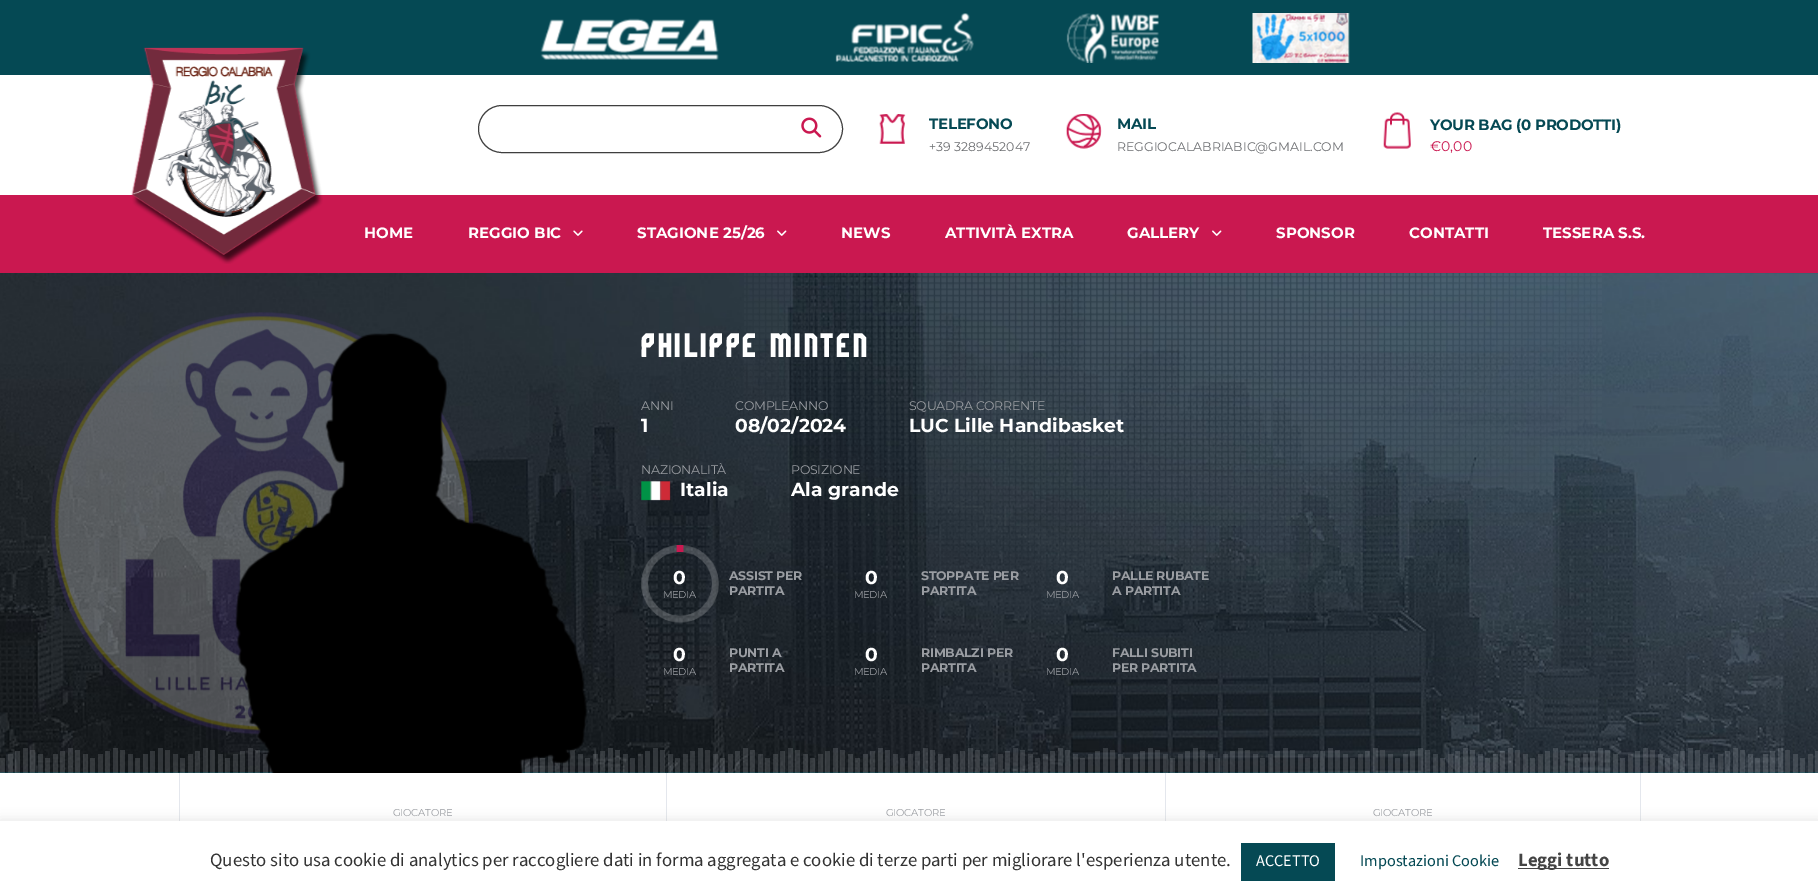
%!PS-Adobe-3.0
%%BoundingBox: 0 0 1818 896
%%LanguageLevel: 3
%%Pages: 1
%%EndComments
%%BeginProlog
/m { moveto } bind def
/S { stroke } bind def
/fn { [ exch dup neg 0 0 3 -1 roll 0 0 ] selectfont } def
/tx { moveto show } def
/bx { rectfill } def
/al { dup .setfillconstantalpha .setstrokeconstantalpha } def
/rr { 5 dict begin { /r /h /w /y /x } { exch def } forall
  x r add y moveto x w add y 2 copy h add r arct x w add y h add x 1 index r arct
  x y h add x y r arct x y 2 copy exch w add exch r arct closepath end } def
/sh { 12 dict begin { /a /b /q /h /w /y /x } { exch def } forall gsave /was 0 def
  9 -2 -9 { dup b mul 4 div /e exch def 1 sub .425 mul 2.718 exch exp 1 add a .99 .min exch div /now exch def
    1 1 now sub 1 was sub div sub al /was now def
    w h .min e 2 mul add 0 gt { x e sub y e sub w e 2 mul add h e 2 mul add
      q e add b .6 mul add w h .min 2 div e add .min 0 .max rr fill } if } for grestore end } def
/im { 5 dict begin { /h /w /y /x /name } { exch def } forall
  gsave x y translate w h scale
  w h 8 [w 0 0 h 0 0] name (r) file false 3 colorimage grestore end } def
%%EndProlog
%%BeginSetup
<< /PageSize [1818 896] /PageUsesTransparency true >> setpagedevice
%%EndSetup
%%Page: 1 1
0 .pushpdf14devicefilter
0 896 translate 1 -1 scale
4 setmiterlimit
1 setgray
0 0 1818 896 bx
0.02 0.286 0.329 setrgbcolor
0 0 1818 75 bx
(image0.raw) 540 18 179 42 im
(image1.raw) 835 13 139 49 im
(image2.raw) 1066 13 93 50 im
(image3.raw) 1252 13 98 50 im
0.247 setgray
478.5 105.5 364 47 23.5 rr S
(image4.raw) 801 117 21 21 im
(image5.raw) 879 114 27 30 im
/Montserrat-Bold 15 fn
0.02 0.286 0.329 setrgbcolor
929 129 m -0.3 0 (TELEFONO) ashow
/Montserrat-Regular 12.5 fn
0.42 0.427 0.439 setrgbcolor
(+39 3289452047) 929 151 tx
(image6.raw) 1066 114 36 35 im
/Montserrat-Bold 15 fn
0.02 0.286 0.329 setrgbcolor
1117 129 m -0.3 0 (MAIL) ashow
/Montserrat-Regular 12.5 fn
0.42 0.427 0.439 setrgbcolor
(REGGIOCALABRIABIC@GMAIL.COM) 1117 151 tx
(image8.raw) 1383 118 28 31 im
(image7.raw) 1390 112 15 14 im
/Montserrat-Bold 15 fn
0.02 0.286 0.329 setrgbcolor
1430 130 m -0.3 0 (YOUR BAG \(0 PRODOTTI\)) ashow
/Montserrat-Regular 14 fn
0.792 0.094 0.314 setrgbcolor
(€0,00) 1430 151 tx
0 195 1818 78 bx
(image9.raw) 131 47 192 217 im
/Montserrat-Bold 15 fn
1 setgray
(HOME) 364 238 tx
(REGGIO BIC) 468 238 tx
(image10.raw) 573 230 10 6 im
(STAGIONE 25/26) 637 238 tx
(image11.raw) 777 230 10 6 im
(NEWS) 841 238 tx
(ATTIVITÀ EXTRA) 945 238 tx
(GALLERY) 1127 238 tx
(image11.raw) 1212 230 10 6 im
(SPONSOR) 1276 238 tx
(CONTATTI) 1409 238 tx
(TESSERA S.S.) 1543 238 tx
0.02 0.286 0.329 setrgbcolor
0 273 1818 500 bx
(image12.raw) 0 273 1818 500 im
(image13.raw) 744 273 858 310 im
(image14.raw) 50 312 423 423 im
0.11 al
0 setgray
570 750 5 23 bx
30 750 5 23 bx
165 750 5 23 bx
705 750 5 23 bx
840 750 5 23 bx
975 750 5 23 bx
1110 750 5 23 bx
1245 750 5 23 bx
1380 750 5 23 bx
1515 750 5 23 bx
1650 750 5 23 bx
1785 750 5 23 bx
1 al
(image18.raw) 8 754 1805 19 im
(image19.raw) 38 754 1760 19 im
(image20.raw) 30 750 1760 23 im
(image21.raw) 23 748 1760 25 im
(image22.raw) 15 751 1803 22 im
(image23.raw) 8 754 1805 19 im
(image24.raw) 0 758 1805 15 im
(image15.raw) 235 333 352 440 im
/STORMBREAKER-Bold 32.5 fn
1 setgray
641 357 m 3.75 0 (PHILIPPE MINTEN) ashow
/Montserrat-Regular 12.5 fn
0.604 0.616 0.635 setrgbcolor
641 410 m -0.25 0 (ANNI) ashow
/Montserrat-Bold 18.75 fn
1 setgray
(1) 641 432 tx
/Montserrat-Regular 12.5 fn
0.604 0.616 0.635 setrgbcolor
735 410 m -0.25 0 (COMPLEANNO) ashow
/Montserrat-Bold 18.75 fn
1 setgray
(08/02/2024) 735 432 tx
/Montserrat-Regular 12.5 fn
0.604 0.616 0.635 setrgbcolor
909 410 m -0.25 0 (SQUADRA CORRENTE) ashow
/Montserrat-Bold 18.75 fn
1 setgray
(LUC Lille Handibasket) 909 432 tx
/Montserrat-Regular 12.5 fn
0.604 0.616 0.635 setrgbcolor
641 474 m -0.25 0 (NAZIONALITÀ) ashow
(image16.raw) 641 481 30 20 im
/Montserrat-Bold 18.75 fn
1 setgray
(Italia) 680 496 tx
/Montserrat-Regular 12.5 fn
0.604 0.616 0.635 setrgbcolor
791 474 m -0.25 0 (POSIZIONE) ashow
/Montserrat-Bold 18.75 fn
1 setgray
(Ala grande) 791 496 tx
(image17.raw) 641 545 78 78 im
673 584 m -0.5 0 (0) ashow
/Montserrat-Regular 10 fn
0.604 0.616 0.635 setrgbcolor
663 598 m -0.5 0 (MEDIA) ashow
/Montserrat-Bold 12.5 fn
729 580 m -0.25 0 (ASSIST PER) ashow
729 595 m -0.25 0 (PARTITA) ashow
/Montserrat-Bold 18.75 fn
1 setgray
865 584 m -0.5 0 (0) ashow
/Montserrat-Regular 10 fn
0.604 0.616 0.635 setrgbcolor
854 598 m -0.5 0 (MEDIA) ashow
/Montserrat-Bold 12.5 fn
921 580 m -0.25 0 (STOPPATE PER) ashow
921 595 m -0.25 0 (PARTITA) ashow
/Montserrat-Bold 18.75 fn
1 setgray
1056 584 m -0.5 0 (0) ashow
/Montserrat-Regular 10 fn
0.604 0.616 0.635 setrgbcolor
1046 598 m -0.5 0 (MEDIA) ashow
/Montserrat-Bold 12.5 fn
1112 580 m -0.25 0 (PALLE RUBATE) ashow
1112 595 m -0.25 0 (A PARTITA) ashow
/Montserrat-Bold 18.75 fn
1 setgray
673 661 m -0.5 0 (0) ashow
/Montserrat-Regular 10 fn
0.604 0.616 0.635 setrgbcolor
663 675 m -0.5 0 (MEDIA) ashow
/Montserrat-Bold 12.5 fn
729 657 m -0.25 0 (PUNTI A) ashow
729 672 m -0.25 0 (PARTITA) ashow
/Montserrat-Bold 18.75 fn
1 setgray
865 661 m -0.5 0 (0) ashow
/Montserrat-Regular 10 fn
0.604 0.616 0.635 setrgbcolor
854 675 m -0.5 0 (MEDIA) ashow
/Montserrat-Bold 12.5 fn
921 657 m -0.25 0 (RIMBALZI PER) ashow
921 672 m -0.25 0 (PARTITA) ashow
/Montserrat-Bold 18.75 fn
1 setgray
1056 661 m -0.5 0 (0) ashow
/Montserrat-Regular 10 fn
0.604 0.616 0.635 setrgbcolor
1046 675 m -0.5 0 (MEDIA) ashow
/Montserrat-Bold 12.5 fn
1112 657 m -0.25 0 (FALLI SUBITI) ashow
1112 672 m -0.25 0 (PER PARTITA) ashow
0.894 0.906 0.929 setrgbcolor
1640 773 1 48 bx
179 773 1 48 bx
/Montserrat-Regular 10 fn
0.604 0.616 0.635 setrgbcolor
393 816 m -0.25 0 (GIOCATORE) ashow
0.894 0.906 0.929 setrgbcolor
666 773 1 48 bx
0.604 0.616 0.635 setrgbcolor
886 816 m -0.25 0 (GIOCATORE) ashow
0.894 0.906 0.929 setrgbcolor
1165 773 1 48 bx
0.604 0.616 0.635 setrgbcolor
1373 816 m -0.25 0 (GIOCATORE) ashow
0.675 0.671 0.671 setrgbcolor
0 820 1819 75 0 6 0.3 sh
1 setgray
0 821 1818 75 bx
/SourceSans3-Regular 18.75 fn
0.2 setgray
(Questo sito usa cookie di analytics per raccogliere dati in forma aggregata e cookie di terze parti per migliorare l'esperienza utente.) 210 866 tx
0.02 0.286 0.329 setrgbcolor
1241 843 94 38 bx
/SourceSans3-Regular 16.25 fn
1 setgray
(ACCETTO) 1256 866 tx
0.02 0.286 0.329 setrgbcolor
(Impostazioni Cookie) 1360 866 tx
0.267 setgray
1518 868 91 1 bx
/SourceSans3-Bold 18.75 fn
(Leggi tutto) 1518 866 tx
.poppdf14devicefilter showpage
%%EOF
